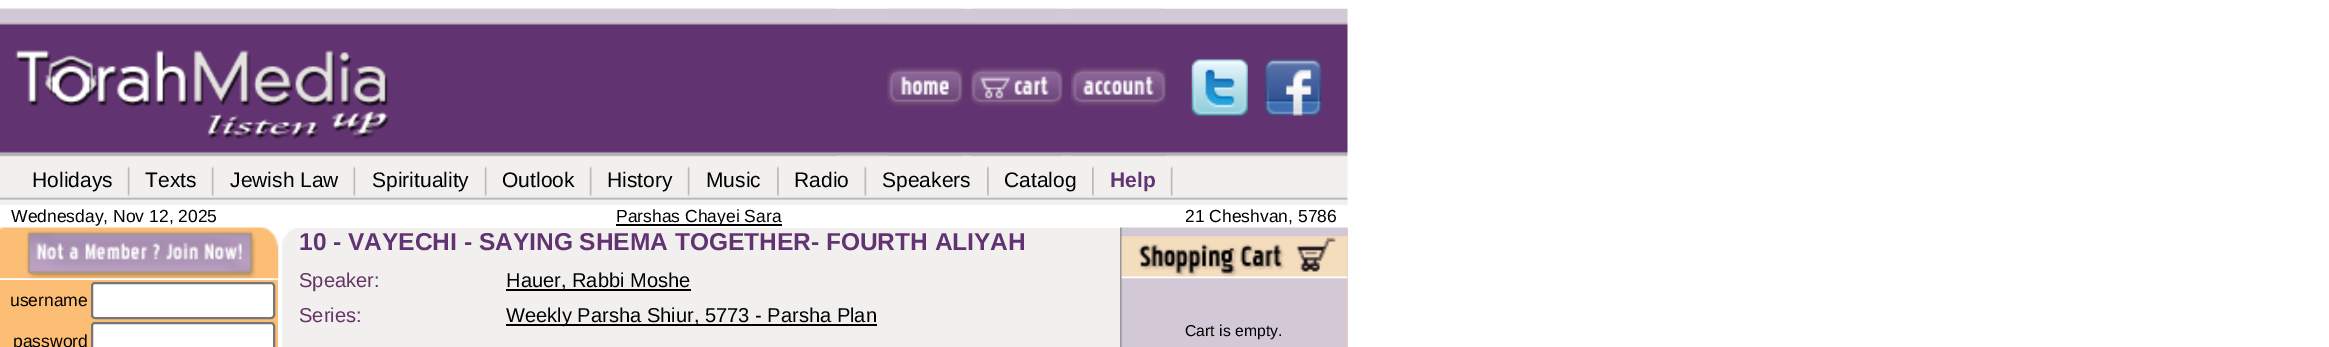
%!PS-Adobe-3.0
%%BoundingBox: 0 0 2329 347
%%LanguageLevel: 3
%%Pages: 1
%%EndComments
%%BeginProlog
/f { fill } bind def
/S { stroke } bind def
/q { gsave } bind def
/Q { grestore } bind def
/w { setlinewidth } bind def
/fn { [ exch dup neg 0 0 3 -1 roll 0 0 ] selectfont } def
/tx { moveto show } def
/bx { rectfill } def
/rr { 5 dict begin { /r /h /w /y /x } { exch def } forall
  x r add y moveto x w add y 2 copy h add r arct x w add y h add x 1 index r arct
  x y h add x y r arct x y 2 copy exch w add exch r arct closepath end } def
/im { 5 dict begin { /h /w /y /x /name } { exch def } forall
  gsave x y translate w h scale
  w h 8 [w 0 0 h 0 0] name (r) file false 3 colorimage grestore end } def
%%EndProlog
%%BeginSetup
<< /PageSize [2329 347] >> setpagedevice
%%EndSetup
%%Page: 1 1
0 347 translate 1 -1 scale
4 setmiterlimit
1 setgray
0 0 2329 347 bx
(image0.raw) 0 8 1348 148 im
(image1.raw) 0 8 837 148 im
(image2.raw) 887 8 76 148 im
(image3.raw) 971 8 92 148 im
(image4.raw) 1071 8 95 148 im
(image5.raw) 1191 59 57 57 im
(image6.raw) 1265 59 57 57 im
(image7.raw) 0 156 1348 49 im
/LiberationSans-Regular 21 fn
0 setgray
(Holidays) 32 187 tx
(image8.raw) 127 166 3 30 im
(Texts) 145 187 tx
(image8.raw) 211 166 3 30 im
(Jewish Law) 230 187 tx
(image9.raw) 353 166 3 30 im
(Spirituality) 372 187 tx
(image8.raw) 484 166 3 30 im
(Outlook) 502 187 tx
(image8.raw) 589 166 3 30 im
(History) 607 187 tx
(image8.raw) 687 166 3 30 im
(Music) 706 187 tx
(image10.raw) 777 166 2 30 im
(Radio) 794 187 tx
(image9.raw) 864 166 3 30 im
(Speakers) 882 187 tx
(image10.raw) 987 166 2 30 im
(Catalog) 1004 187 tx
(image10.raw) 1092 166 2 30 im
/LiberationSans-Bold 21 fn
0.384 0.2 0.443 setrgbcolor
(Help) 1110 187 tx
(image8.raw) 1170 166 3 30 im
/LiberationSans-Regular 17.5 fn
0 setgray
(Wednesday, Nov 12, 2025) 11 222 tx
616 224 166 2 bx
(Parshas Chayei Sara) 616 222 tx
(21 Cheshvan, 5786) 1185 222 tx
0.988 0.741 0.455 setrgbcolor
0 280 278 67 bx
(image11.raw) 0 227 279 52 im
0 setgray
(username) 10 306 tx
1 setgray
92 283 182 35 3 rr q f Q
0.463 setgray
2 w
S
0 setgray
(password) 13 347 tx
1 setgray
92 323 182 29 3 rr q f Q
0.463 setgray
S
0.945 0.941 0.937 setrgbcolor
282 228 838 119 bx
(image12.raw) 282 227 17 16 im
/LiberationSans-Bold 24.5 fn
0.384 0.2 0.443 setrgbcolor
(10 - VAYECHI - SAYING SHEMA TOGETHER- FOURTH ALIYAH) 299 250 tx
/LiberationSans-Regular 20.1 fn
0.4 0.2 0.4 setrgbcolor
(Speaker:) 299 287 tx
0 setgray
506 289 185 2 bx
(Hauer, Rabbi Moshe) 506 287 tx
0.4 0.2 0.4 setrgbcolor
(Series:) 299 322 tx
0 setgray
506 324 371 2 bx
(Weekly Parsha Shiur, 5773 - Parsha Plan) 506 322 tx
1 0.82 0.569 setrgbcolor
1347 228 1 119 bx
(image13.raw) 1120 227 228 120 im
(image14.raw) 1121 236 227 43 im
/LiberationSans-Regular 15.75 fn
0 setgray
(Cart is empty.) 1185 336 tx
showpage
%%EOF
